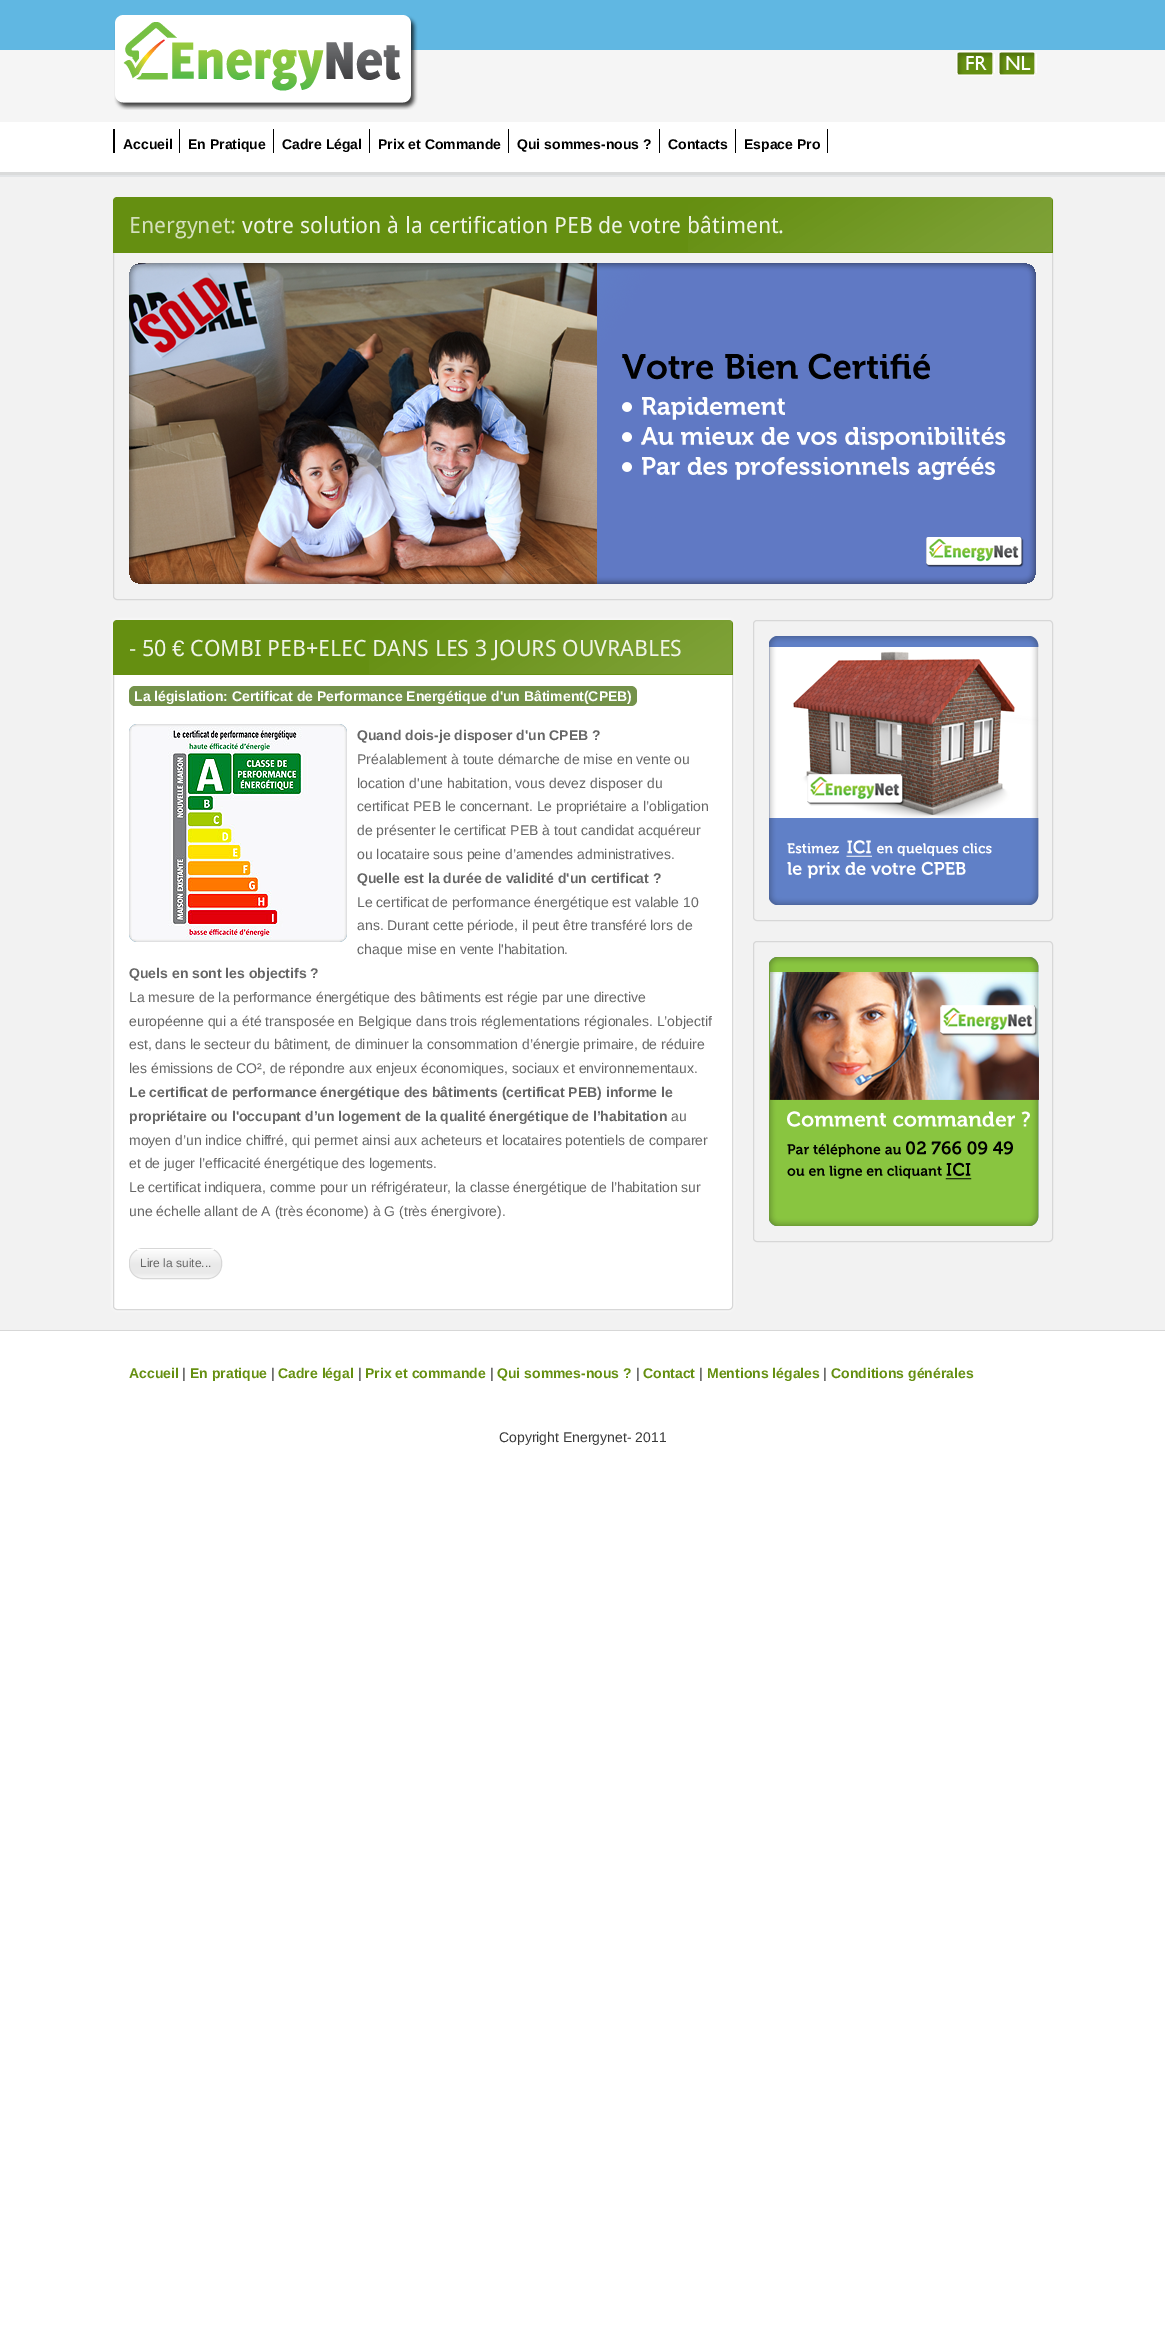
%!PS-Adobe-3.0
%%BoundingBox: 0 0 1165 2349
%%LanguageLevel: 3
%%Pages: 1
%%EndComments
%%BeginProlog
/m { moveto } bind def
/l { lineto } bind def
/c { curveto } bind def
/h { closepath } bind def
/f { fill } bind def
/S { stroke } bind def
/q { gsave } bind def
/Q { grestore } bind def
/fn { [ exch dup neg 0 0 3 -1 roll 0 0 ] selectfont } def
/tx { moveto show } def
/bx { rectfill } def
/al { dup .setfillconstantalpha .setstrokeconstantalpha } def
/rr { 5 dict begin { /r /h /w /y /x } { exch def } forall
  x r add y moveto x w add y 2 copy h add r arct x w add y h add x 1 index r arct
  x y h add x y r arct x y 2 copy exch w add exch r arct closepath end } def
/sh { 12 dict begin { /a /b /q /h /w /y /x } { exch def } forall gsave /was 0 def
  9 -2 -9 { dup b mul 4 div /e exch def 1 sub .425 mul 2.718 exch exp 1 add a .99 .min exch div /now exch def
    1 1 now sub 1 was sub div sub al /was now def
    w h .min e 2 mul add 0 gt { x e sub y e sub w e 2 mul add h e 2 mul add
      q e add b .6 mul add w h .min 2 div e add .min 0 .max rr fill } if } for grestore end } def
/im { 5 dict begin { /h /w /y /x /name } { exch def } forall
  gsave x y translate w h scale
  w h 8 [w 0 0 h 0 0] name (r) file false 3 colorimage grestore end } def
%%EndProlog
%%BeginSetup
<< /PageSize [1165 2349] /PageUsesTransparency true >> setpagedevice
%%EndSetup
%%Page: 1 1
0 .pushpdf14devicefilter
0 2349 translate 1 -1 scale
4 setmiterlimit
1 setgray
0 0 1165 2349 bx
0.961 setgray
0 50 1165 72 bx
0.376 0.718 0.886 setrgbcolor
0 0 1165 50 bx
(image0.raw) 956 51 39 25 im
(image1.raw) 998 51 39 25 im
(image2.raw) 114 15 304 95 im
0 setgray
113 129 2 24 bx
179 129 1 24 bx
/LiberationSans-Bold 14 fn
(Accueil) 123 149 tx
273 129 1 24 bx
(En Pratique) 188 149 tx
369 129 1 24 bx
(Cadre Légal) 282 149 tx
508 129 1 24 bx
(Prix et Commande) 378 149 tx
659 129 1 24 bx
(Qui sommes-nous ?) 517 149 tx
735 129 1 24 bx
(Contacts) 668 149 tx
827 129 1 24 bx
(Espace Pro) 744 149 tx
(image3.raw) 0 172 1165 5 im
0.949 setgray
0 177 1165 1153 bx
0.843 setgray
0 1330 1165 1 bx
113.5 197.5 939 402 3.5 rr S
0.396 0.561 0.067 setrgbcolor
117 197 m 1049 197 l 1051 197 1053 199 1053 201 c 1053 253 l 113 253 l 113 201 l 113 199 115 197 117 197 c h f
(image4.raw) 688 197 364 55 im
/DroidSans-Regular 22.4 fn
0.831 0.878 0.737 setrgbcolor
(Energynet:) 129 233 tx
0.941 0.957 0.906 setrgbcolor
(votre solution à la certification PEB de votre bâtiment.) 242 233 tx
(image5.raw) 129 263 907 321 im
1 setgray
113 620 620 690 4 2.5 0.8 sh
113.5 620.5 619 689 3.5 rr q f Q
0.843 setgray
S
0.396 0.561 0.067 setrgbcolor
117 620 m 729 620 l 731 620 733 622 733 624 c 733 675 l 113 675 l 113 624 l 113 622 115 620 117 620 c h f
(image6.raw) 369 620 363 54 im
0.831 0.878 0.737 setrgbcolor
(-) 129 656 tx
0.941 0.957 0.906 setrgbcolor
(50) 142 656 tx
/LiberationSans-Regular 22.4 fn
(€) 172 656 tx
/DroidSans-Regular 22.4 fn
(COMBI PEB+ELEC DANS LES 3 JOURS OUVRABLES) 190 656 tx
0.455 0.573 0.29 setrgbcolor
129 686 508 20 6 rr f
/LiberationSans-Bold 14 fn
1 setgray
(La législation: Certificat de Performance Energétique d'un Bâtiment\(CPEB\)) 134 701 tx
(image7.raw) 129 724 218 218 im
0.4 setgray
(Quand dois-je disposer d'un CPEB ?) 357 740 tx
/LiberationSans-Regular 14 fn
(Préalablement à toute démarche de mise en vente ou) 357 764 tx
(location d'une habitation, vous devez disposer du) 357 788 tx
(certificat PEB le concernant. Le propriétaire a l’obligation) 357 811 tx
(de présenter le certificat PEB à tout candidat acquéreur) 357 835 tx
(ou locataire sous peine d’amendes administratives.) 357 859 tx
/LiberationSans-Bold 14 fn
(Quelle est la durée de validité d'un certificat ?) 357 883 tx
/LiberationSans-Regular 14 fn
(Le certificat de performance énergétique est valable 10) 357 907 tx
(ans. Durant cette période, il peut être transféré lors de) 357 930 tx
(chaque mise en vente l'habitation.) 357 954 tx
/LiberationSans-Bold 14 fn
(Quels en sont les objectifs ?) 129 978 tx
/LiberationSans-Regular 14 fn
(La mesure de la performance énergétique des bâtiments est régie par une directive) 129 1002 tx
(européenne qui a été transposée en Belgique dans trois réglementations régionales. L’objectif) 129 1026 tx
(est, dans le secteur du bâtiment, de diminuer la consommation d’énergie primaire, de réduire) 129 1049 tx
(les émissions de CO², de répondre aux enjeux économiques, sociaux et environnementaux.) 129 1073 tx
/LiberationSans-Bold 14 fn
(Le certificat de performance énergétique des bâtiments \(certificat PEB\) informe le) 129 1097 tx
(propriétaire ou l'occupant d’un logement de la qualité énergétique de l’habitation) 129 1121 tx
/LiberationSans-Regular 14 fn
(au) 671 1121 tx
(moyen d’un indice chiffré, qui permet ainsi aux acheteurs et locataires potentiels de comparer) 129 1145 tx
(et de juger l’efficacité énergétique des logements.) 129 1168 tx
(Le certificat indiquera, comme pour un réfrigérateur, la classe énergétique de l’habitation sur) 129 1192 tx
(une échelle allant de A \(très économe\) à G \(très énergivore\).) 129 1216 tx
0.914 setgray
129.5 1248.5 92 30 13.5 rr q f Q
0.843 setgray
S
(image8.raw) 130 1250 91 28 im
1 setgray
137 1249 77 1 bx
/LiberationSans-Regular 12 fn
0.4 setgray
(Lire la suite...) 140 1267 tx
0.843 setgray
753.5 620.5 299 300 3.5 rr S
(image9.raw) 769 636 270 269 im
753.5 941.5 299 300 3.5 rr S
(image10.raw) 769 957 270 269 im
/LiberationSans-Bold 14 fn
0.396 0.561 0.067 setrgbcolor
(Accueil) 129 1378 tx
/LiberationSans-Regular 14 fn
0.22 setgray
(|) 182 1378 tx
/LiberationSans-Bold 14 fn
0.396 0.561 0.067 setrgbcolor
(En pratique) 190 1378 tx
/LiberationSans-Regular 14 fn
0.22 setgray
(|) 271 1378 tx
/LiberationSans-Bold 14 fn
0.396 0.561 0.067 setrgbcolor
(Cadre légal) 278 1378 tx
/LiberationSans-Regular 14 fn
0.22 setgray
(|) 358 1378 tx
/LiberationSans-Bold 14 fn
0.396 0.561 0.067 setrgbcolor
(Prix et commande) 365 1378 tx
/LiberationSans-Regular 14 fn
0.22 setgray
(|) 490 1378 tx
/LiberationSans-Bold 14 fn
0.396 0.561 0.067 setrgbcolor
(Qui sommes-nous ?) 497 1378 tx
/LiberationSans-Regular 14 fn
0.22 setgray
(|) 636 1378 tx
/LiberationSans-Bold 14 fn
0.396 0.561 0.067 setrgbcolor
(Contact) 643 1378 tx
/LiberationSans-Regular 14 fn
0.22 setgray
(|) 699 1378 tx
/LiberationSans-Bold 14 fn
0.396 0.561 0.067 setrgbcolor
(Mentions légales) 707 1378 tx
/LiberationSans-Regular 14 fn
0.22 setgray
(|) 823 1378 tx
/LiberationSans-Bold 14 fn
0.396 0.561 0.067 setrgbcolor
(Conditions générales) 831 1378 tx
/LiberationSans-Regular 14 fn
0.22 setgray
(Copyright Energynet- 2011) 499 1442 tx
.poppdf14devicefilter showpage
%%EOF
